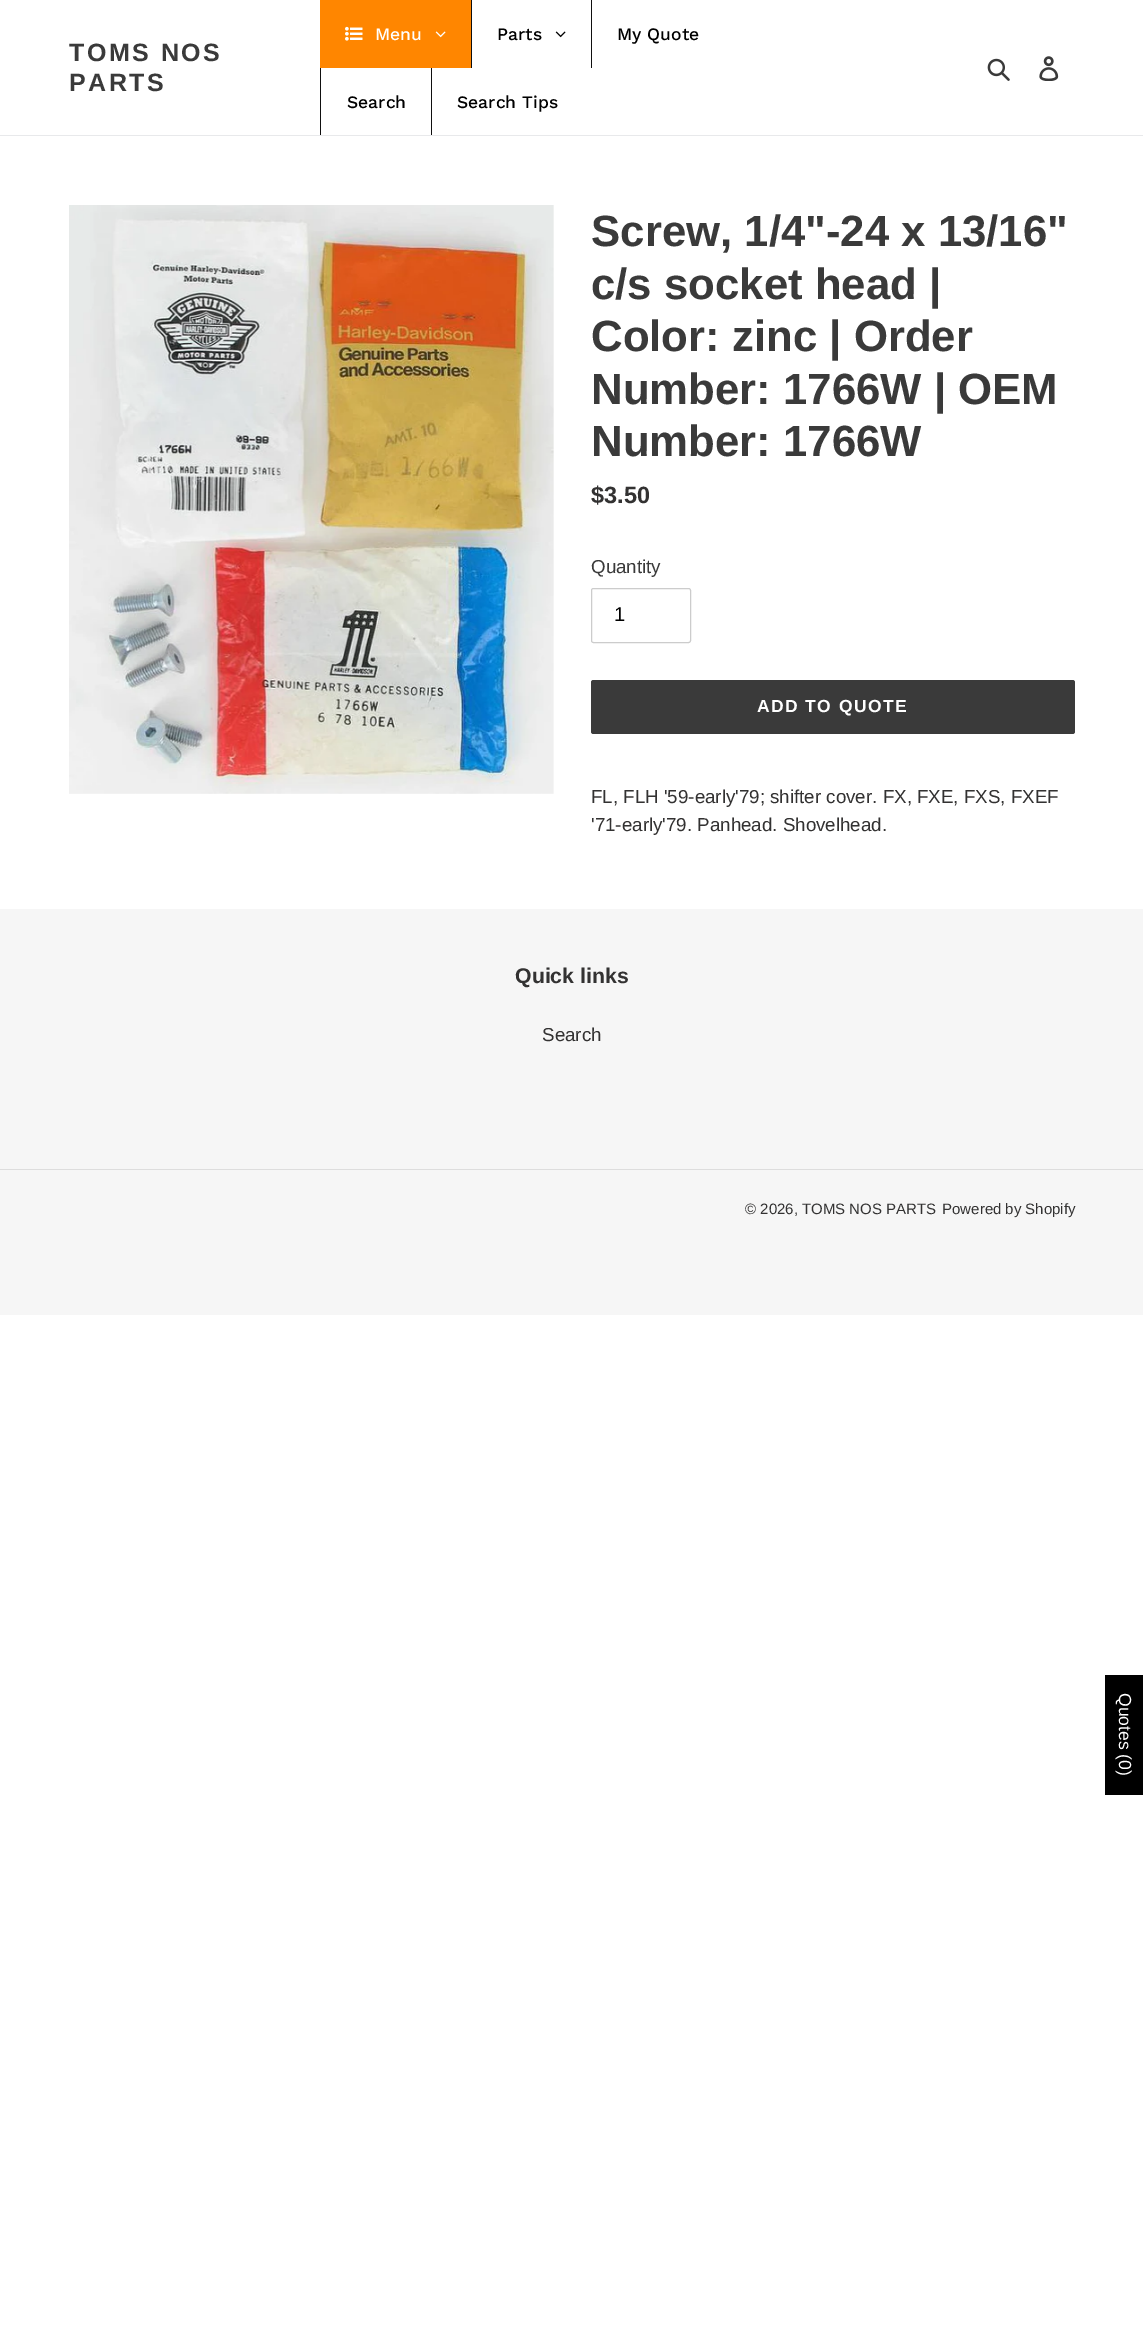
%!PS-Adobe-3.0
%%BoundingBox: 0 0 1143 2338
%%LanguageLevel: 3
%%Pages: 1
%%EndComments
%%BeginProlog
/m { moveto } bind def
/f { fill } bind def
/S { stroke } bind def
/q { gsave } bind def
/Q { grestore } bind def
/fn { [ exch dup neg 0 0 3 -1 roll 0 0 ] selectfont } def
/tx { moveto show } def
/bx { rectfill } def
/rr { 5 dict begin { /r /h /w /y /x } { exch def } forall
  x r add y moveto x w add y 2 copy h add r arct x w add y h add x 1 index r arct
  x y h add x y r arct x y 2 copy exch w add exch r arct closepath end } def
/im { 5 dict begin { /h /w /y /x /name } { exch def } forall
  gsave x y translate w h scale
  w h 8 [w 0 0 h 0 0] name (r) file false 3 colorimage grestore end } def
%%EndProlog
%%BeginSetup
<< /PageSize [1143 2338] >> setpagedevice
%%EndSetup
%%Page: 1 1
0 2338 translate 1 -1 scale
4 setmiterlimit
1 setgray
0 0 1143 2338 bx
0.91 0.914 0.922 setrgbcolor
0 135 1143 1 bx
/LiberationSans-Bold 25 fn
0.227 setgray
69 61 m 2.5 0 (TOMS NOS) ashow
69 91 m 2.5 0 (PARTS) ashow
1 0.525 0 setrgbcolor
320 0 151 68 bx
(image0.raw) 345 26 18 15 im
/WorkSans-Medium 17.5 fn
1 setgray
(Menu) 375 40 tx
(image1.raw) 435 31 11 7 im
0.059 setgray
471 0 1 68 bx
0 setgray
(Parts) 497 40 tx
(image2.raw) 555 31 11 7 im
0.059 setgray
591 0 1 68 bx
0 setgray
(My Quote) 617 40 tx
0.059 setgray
320 68 1 67 bx
0 setgray
(Search) 347 108 tx
0.059 setgray
431 68 1 67 bx
0 setgray
(Search Tips) 457 108 tx
(image3.raw) 987 58 23 23 im
(image4.raw) 1039 56 20 25 im
(image5.raw) 69 205 485 589 im
/LiberationSans-Bold 43.75 fn
0.227 setgray
(Screw, 1/4"-24 x 13/16") 591 246 tx
(c/s socket head |) 591 299 tx
(Color: zinc | Order) 591 351 tx
(Number: 1766W | OEM) 591 404 tx
(Number: 1766W) 591 456 tx
/LiberationSans-Bold 23.5 fn
0.2 0.196 0.196 setrgbcolor
($3.50) 591 503 tx
/LiberationSans-Regular 18.75 fn
0.227 setgray
(Quantity) 591 573 tx
0.8 setgray
591.5 588.5 99 54 2 rr S
/LiberationSans-Regular 20 fn
0 setgray
(1) 614 621 tx
0.227 setgray
591 680 484 54 2.5 rr f
/LiberationSans-Bold 17.5 fn
1 setgray
757 712 m 1.4 0 (ADD TO QUOTE) ashow
/LiberationSans-Regular 18.75 fn
0.2 0.196 0.196 setrgbcolor
(FL, FLH '59-early'79; shifter cover. FX, FXE, FXS, FXEF) 591 803 tx
('71-early'79. Panhead. Shovelhead.) 591 831 tx
0.965 setgray
0 909 1143 406 bx
/LiberationSans-Bold 21.25 fn
0.2 0.196 0.196 setrgbcolor
(Quick links) 515 983 tx
/LiberationSans-Regular 18.75 fn
(Search) 542 1041 tx
0.867 setgray
0 1169 1143 1 bx
/LiberationSans-Regular 15 fn
0.2 0.196 0.196 setrgbcolor
(© 2026, TOMS NOS PARTS) 745 1214 tx
(Powered by Shopify) 942 1214 tx
0 setgray
1105 1675 38 120 bx
/LiberationSans-Regular 17.5 fn
1 setgray
q 1119 1693 translate 90 rotate 0 0 m (Quotes \(0\)) show Q
showpage
%%EOF
